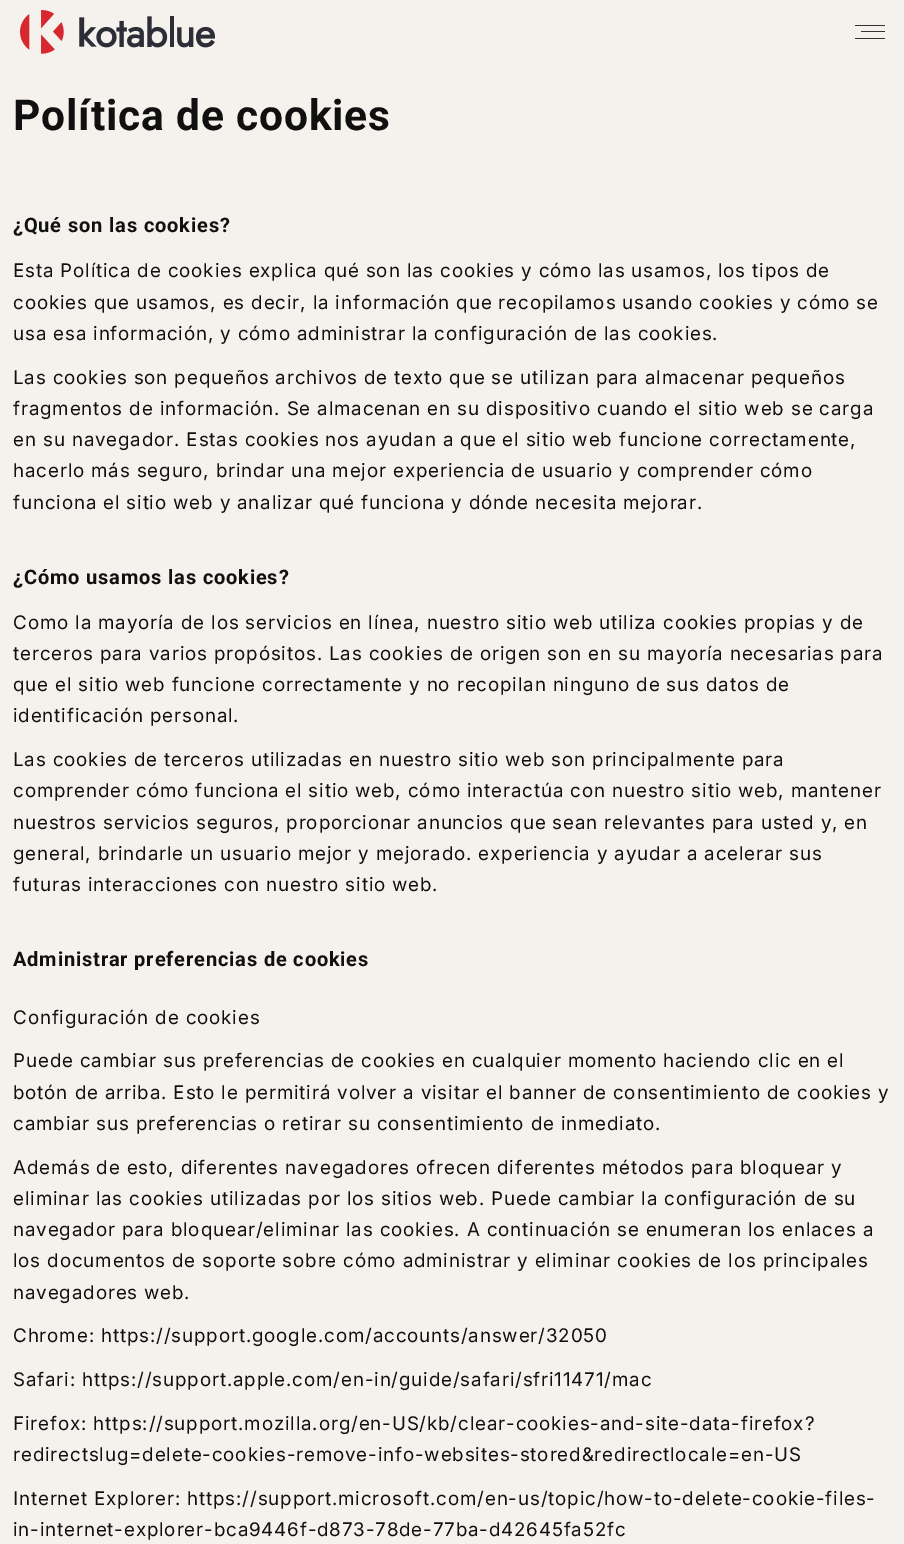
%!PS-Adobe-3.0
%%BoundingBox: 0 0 904 1544
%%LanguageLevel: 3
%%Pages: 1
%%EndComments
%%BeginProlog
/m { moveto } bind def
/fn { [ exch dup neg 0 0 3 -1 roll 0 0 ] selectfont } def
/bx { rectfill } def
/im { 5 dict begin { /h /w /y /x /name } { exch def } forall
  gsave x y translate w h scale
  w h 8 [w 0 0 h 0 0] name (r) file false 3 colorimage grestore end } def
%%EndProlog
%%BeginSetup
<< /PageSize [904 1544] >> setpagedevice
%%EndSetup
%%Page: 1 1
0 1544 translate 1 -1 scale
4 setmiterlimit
0.961 0.949 0.933 setrgbcolor
0 0 904 1544 bx
(image0.raw) 20 10 195 44 im
0.2 setgray
855 25 30 1 bx
861 31 24 1 bx
855 38 30 1 bx
/Roboto-Bold 42.5 fn
0.063 setgray
13 130 m 0.85 0 (Política de cookies) ashow
/Roboto-Bold 20 fn
13 232 m 0.85 0 (¿Qué son las cookies?) ashow
/Inter-Regular 18.75 fn
13 277 m 0.85 0 (Esta Política de cookies explica qué son las cookies y cómo las usamos, los tipos de) ashow
13 309 m 0.85 0 (cookies que usamos, es decir, la información que recopilamos usando cookies y cómo se) ashow
13 340 m 0.85 0 (usa esa información, y cómo administrar la configuración de las cookies.) ashow
13 384 m 0.85 0 (Las cookies son pequeños archivos de texto que se utilizan para almacenar pequeños) ashow
13 415 m 0.85 0 (fragmentos de información. Se almacenan en su dispositivo cuando el sitio web se carga) ashow
13 446 m 0.85 0 (en su navegador. Estas cookies nos ayudan a que el sitio web funcione correctamente,) ashow
13 477 m 0.85 0 (hacerlo más seguro, brindar una mejor experiencia de usuario y comprender cómo) ashow
13 509 m 0.85 0 (funciona el sitio web y analizar qué funciona y dónde necesita mejorar.) ashow
/Roboto-Bold 20 fn
13 584 m 0.85 0 (¿Cómo usamos las cookies?) ashow
/Inter-Regular 18.75 fn
13 629 m 0.85 0 (Como la mayoría de los servicios en línea, nuestro sitio web utiliza cookies propias y de) ashow
13 660 m 0.85 0 (terceros para varios propósitos. Las cookies de origen son en su mayoría necesarias para) ashow
13 691 m 0.85 0 (que el sitio web funcione correctamente y no recopilan ninguno de sus datos de) ashow
13 722 m 0.85 0 (identificación personal.) ashow
13 766 m 0.85 0 (Las cookies de terceros utilizadas en nuestro sitio web son principalmente para) ashow
13 797 m 0.85 0 (comprender cómo funciona el sitio web, cómo interactúa con nuestro sitio web, mantener) ashow
13 829 m 0.85 0 (nuestros servicios seguros, proporcionar anuncios que sean relevantes para usted y, en) ashow
13 860 m 0.85 0 (general, brindarle un usuario mejor y mejorado. experiencia y ayudar a acelerar sus) ashow
13 891 m 0.85 0 (futuras interacciones con nuestro sitio web.) ashow
/Roboto-Bold 20 fn
13 966 m 0.85 0 (Administrar preferencias de cookies) ashow
/Inter-Regular 18.75 fn
13 1024 m 0.85 0 (Configuración de cookies) ashow
13 1067 m 0.85 0 (Puede cambiar sus preferencias de cookies en cualquier momento haciendo clic en el) ashow
13 1099 m 0.85 0 (botón de arriba. Esto le permitirá volver a visitar el banner de consentimiento de cookies y) ashow
13 1130 m 0.85 0 (cambiar sus preferencias o retirar su consentimiento de inmediato.) ashow
13 1174 m 0.85 0 (Además de esto, diferentes navegadores ofrecen diferentes métodos para bloquear y) ashow
13 1205 m 0.85 0 (eliminar las cookies utilizadas por los sitios web. Puede cambiar la configuración de su) ashow
13 1236 m 0.85 0 (navegador para bloquear/eliminar las cookies. A continuación se enumeran los enlaces a) ashow
13 1267 m 0.85 0 (los documentos de soporte sobre cómo administrar y eliminar cookies de los principales) ashow
13 1299 m 0.85 0 (navegadores web.) ashow
13 1342 m 0.85 0 (Chrome: https://support.google.com/accounts/answer/32050) ashow
13 1386 m 0.85 0 (Safari: https://support.apple.com/en-in/guide/safari/sfri11471/mac) ashow
13 1430 m 0.85 0 (Firefox: https://support.mozilla.org/en-US/kb/clear-cookies-and-site-data-firefox?) ashow
13 1461 m 0.85 0 (redirectslug=delete-cookies-remove-info-websites-stored&redirectlocale=en-US) ashow
13 1505 m 0.85 0 (Internet Explorer: https://support.microsoft.com/en-us/topic/how-to-delete-cookie-files-) ashow
13 1536 m 0.85 0 (in-internet-explorer-bca9446f-d873-78de-77ba-d42645fa52fc) ashow
showpage
%%EOF
